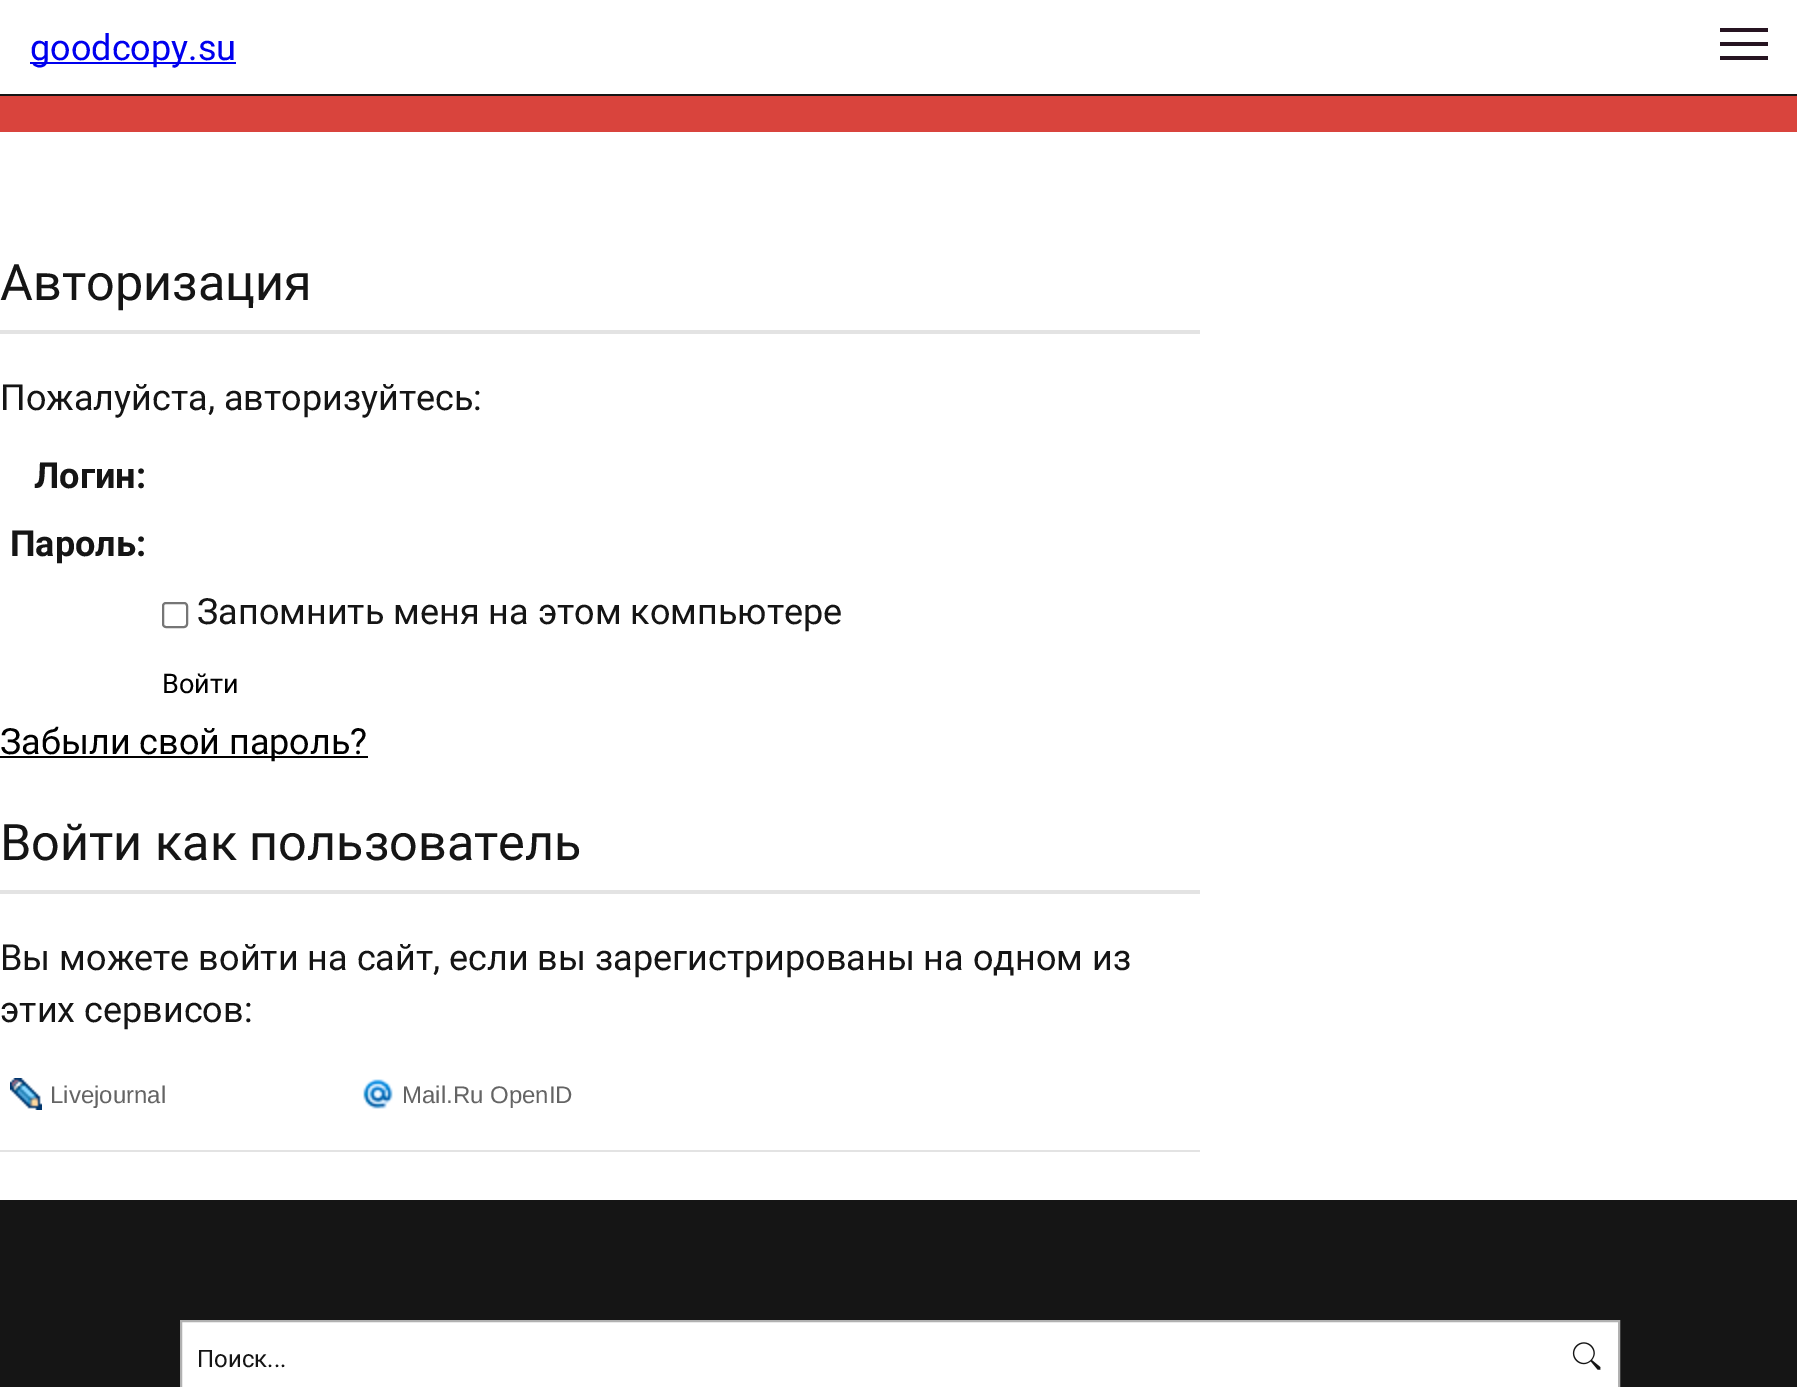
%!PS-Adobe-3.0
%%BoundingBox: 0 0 1797 1387
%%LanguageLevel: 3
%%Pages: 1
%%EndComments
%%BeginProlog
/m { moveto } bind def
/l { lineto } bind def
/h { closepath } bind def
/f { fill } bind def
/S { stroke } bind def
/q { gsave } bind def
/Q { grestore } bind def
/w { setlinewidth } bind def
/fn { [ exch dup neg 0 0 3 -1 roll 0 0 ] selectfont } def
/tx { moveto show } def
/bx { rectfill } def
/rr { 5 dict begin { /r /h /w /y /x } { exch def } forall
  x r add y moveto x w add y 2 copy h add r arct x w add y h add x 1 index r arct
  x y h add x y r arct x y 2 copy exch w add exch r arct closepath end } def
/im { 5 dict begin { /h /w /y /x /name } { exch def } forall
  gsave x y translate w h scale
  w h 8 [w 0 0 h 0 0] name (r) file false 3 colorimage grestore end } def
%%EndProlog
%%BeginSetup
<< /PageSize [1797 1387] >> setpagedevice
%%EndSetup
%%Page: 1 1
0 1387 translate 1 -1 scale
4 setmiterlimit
1 setgray
0 0 1797 1387 bx
0.082 setgray
0 94 1797 2 bx
0 0 0.933 setrgbcolor
30 62 206 2 bx
/Roboto-Regular 36 fn
(goodcopy.su) 30 60 tx
0.149 0.078 0.129 setrgbcolor
1720 42 48 4 bx
1720 28 48 4 bx
1720 56 48 4 bx
0.89 setgray
0 330 1200 4 bx
/Roboto-Regular 50.4 fn
0.082 setgray
(Авторизация) 0 300 tx
/Roboto-Regular 36 fn
(Пожалуйста, авторизуйтесь:) 0 410 tx
/Roboto-Bold 36 fn
(Логин:) 34 488 tx
(Пароль:) 10 556 tx
0.463 setgray
2 w
163 603 24 24 3 rr S
/Roboto-Regular 36 fn
0.082 setgray
(Запомнить меня на этом компьютере) 197 624 tx
/Roboto-Regular 27 fn
0 setgray
(Войти) 162 693 tx
0 756 368 2 bx
/Roboto-Regular 36 fn
(Забыли свой пароль?) 0 754 tx
0.89 setgray
0 890 1200 4 bx
/Roboto-Regular 50.4 fn
0.082 setgray
(Войти как пользователь) 0 860 tx
/Roboto-Regular 36 fn
(Вы можете войти на сайт, если вы зарегистрированы на одном из) 0 970 tx
(этих сервисов:) 0 1022 tx
(image0.raw) 10 1078 32 32 im
/LiberationSans-Regular 24 fn
0.392 setgray
(Livejournal) 50 1103 tx
(image1.raw) 363 1079 30 30 im
(Mail.Ru OpenID) 402 1103 tx
0.89 setgray
0 1150 1200 2 bx
0.082 setgray
0 1200 1797 187 bx
1 setgray
181 1321 m 1619 1321 l 1619 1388 l 181 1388 l h q f Q
0.694 setgray
S
/Roboto-Regular 24 fn
0.082 setgray
(Поиск...) 197 1367 tx
(image2.raw) 1572 1342 29 28 im
0.851 0.267 0.239 setrgbcolor
0 96 1797 36 bx
showpage
%%EOF
